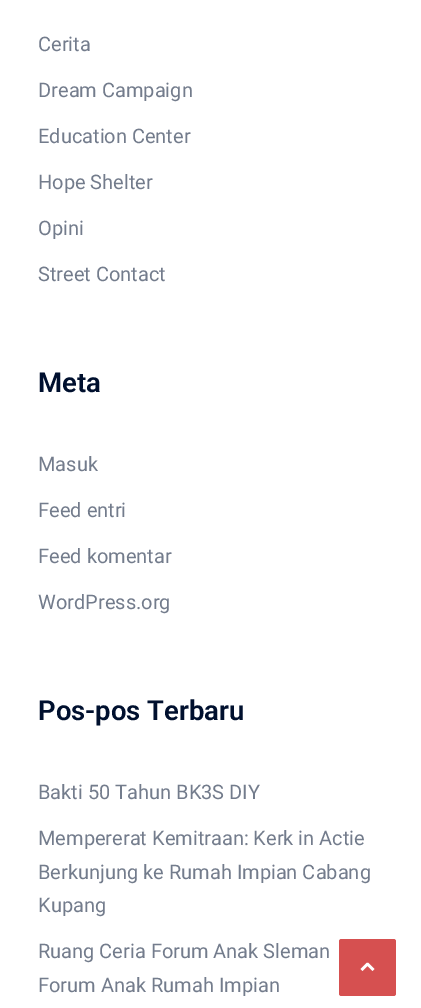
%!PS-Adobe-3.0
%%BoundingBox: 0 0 421 1008
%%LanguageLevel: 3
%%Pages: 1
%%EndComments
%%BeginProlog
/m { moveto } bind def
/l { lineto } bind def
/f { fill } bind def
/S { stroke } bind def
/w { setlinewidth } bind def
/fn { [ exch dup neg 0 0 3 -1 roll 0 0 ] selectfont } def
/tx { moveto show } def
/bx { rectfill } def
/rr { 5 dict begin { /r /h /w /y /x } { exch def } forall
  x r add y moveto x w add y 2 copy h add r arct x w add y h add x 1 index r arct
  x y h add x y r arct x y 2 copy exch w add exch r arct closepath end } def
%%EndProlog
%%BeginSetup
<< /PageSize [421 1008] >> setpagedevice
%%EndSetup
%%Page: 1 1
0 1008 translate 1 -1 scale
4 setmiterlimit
1 setgray
0 0 421 1008 bx
/Roboto-Regular 20 fn
0.451 0.486 0.549 setrgbcolor
(Cerita) 38 51 tx
(Dream Campaign) 38 97 tx
(Education Center) 38 143 tx
(Hope Shelter) 38 189 tx
(Opini) 38 235 tx
(Street Contact) 38 281 tx
/Roboto-SemiBold 27.5 fn
0 0.063 0.18 setrgbcolor
(Meta) 38 392 tx
/Roboto-Regular 20 fn
0.451 0.486 0.549 setrgbcolor
(Masuk) 38 471 tx
(Feed entri) 38 517 tx
(Feed komentar) 38 563 tx
(WordPress.org) 38 609 tx
/Roboto-SemiBold 27.5 fn
0 0.063 0.18 setrgbcolor
(Pos-pos Terbaru) 38 720 tx
/Roboto-Regular 20 fn
0.451 0.486 0.549 setrgbcolor
(Bakti 50 Tahun BK3S DIY) 38 799 tx
(Mempererat Kemitraan: Kerk in Actie) 38 845 tx
(Berkunjung ke Rumah Impian Cabang) 38 879 tx
(Kupang) 38 912 tx
(Ruang Ceria Forum Anak Sleman) 38 958 tx
(Forum Anak Rumah Impian) 38 992 tx
0.839 0.314 0.314 setrgbcolor
339 939 57 57 2.5 rr f
1 setgray
2.5 w
1 setlinejoin
361.5 970 m 367.5 964 l 373.5 970 l S
showpage
%%EOF
